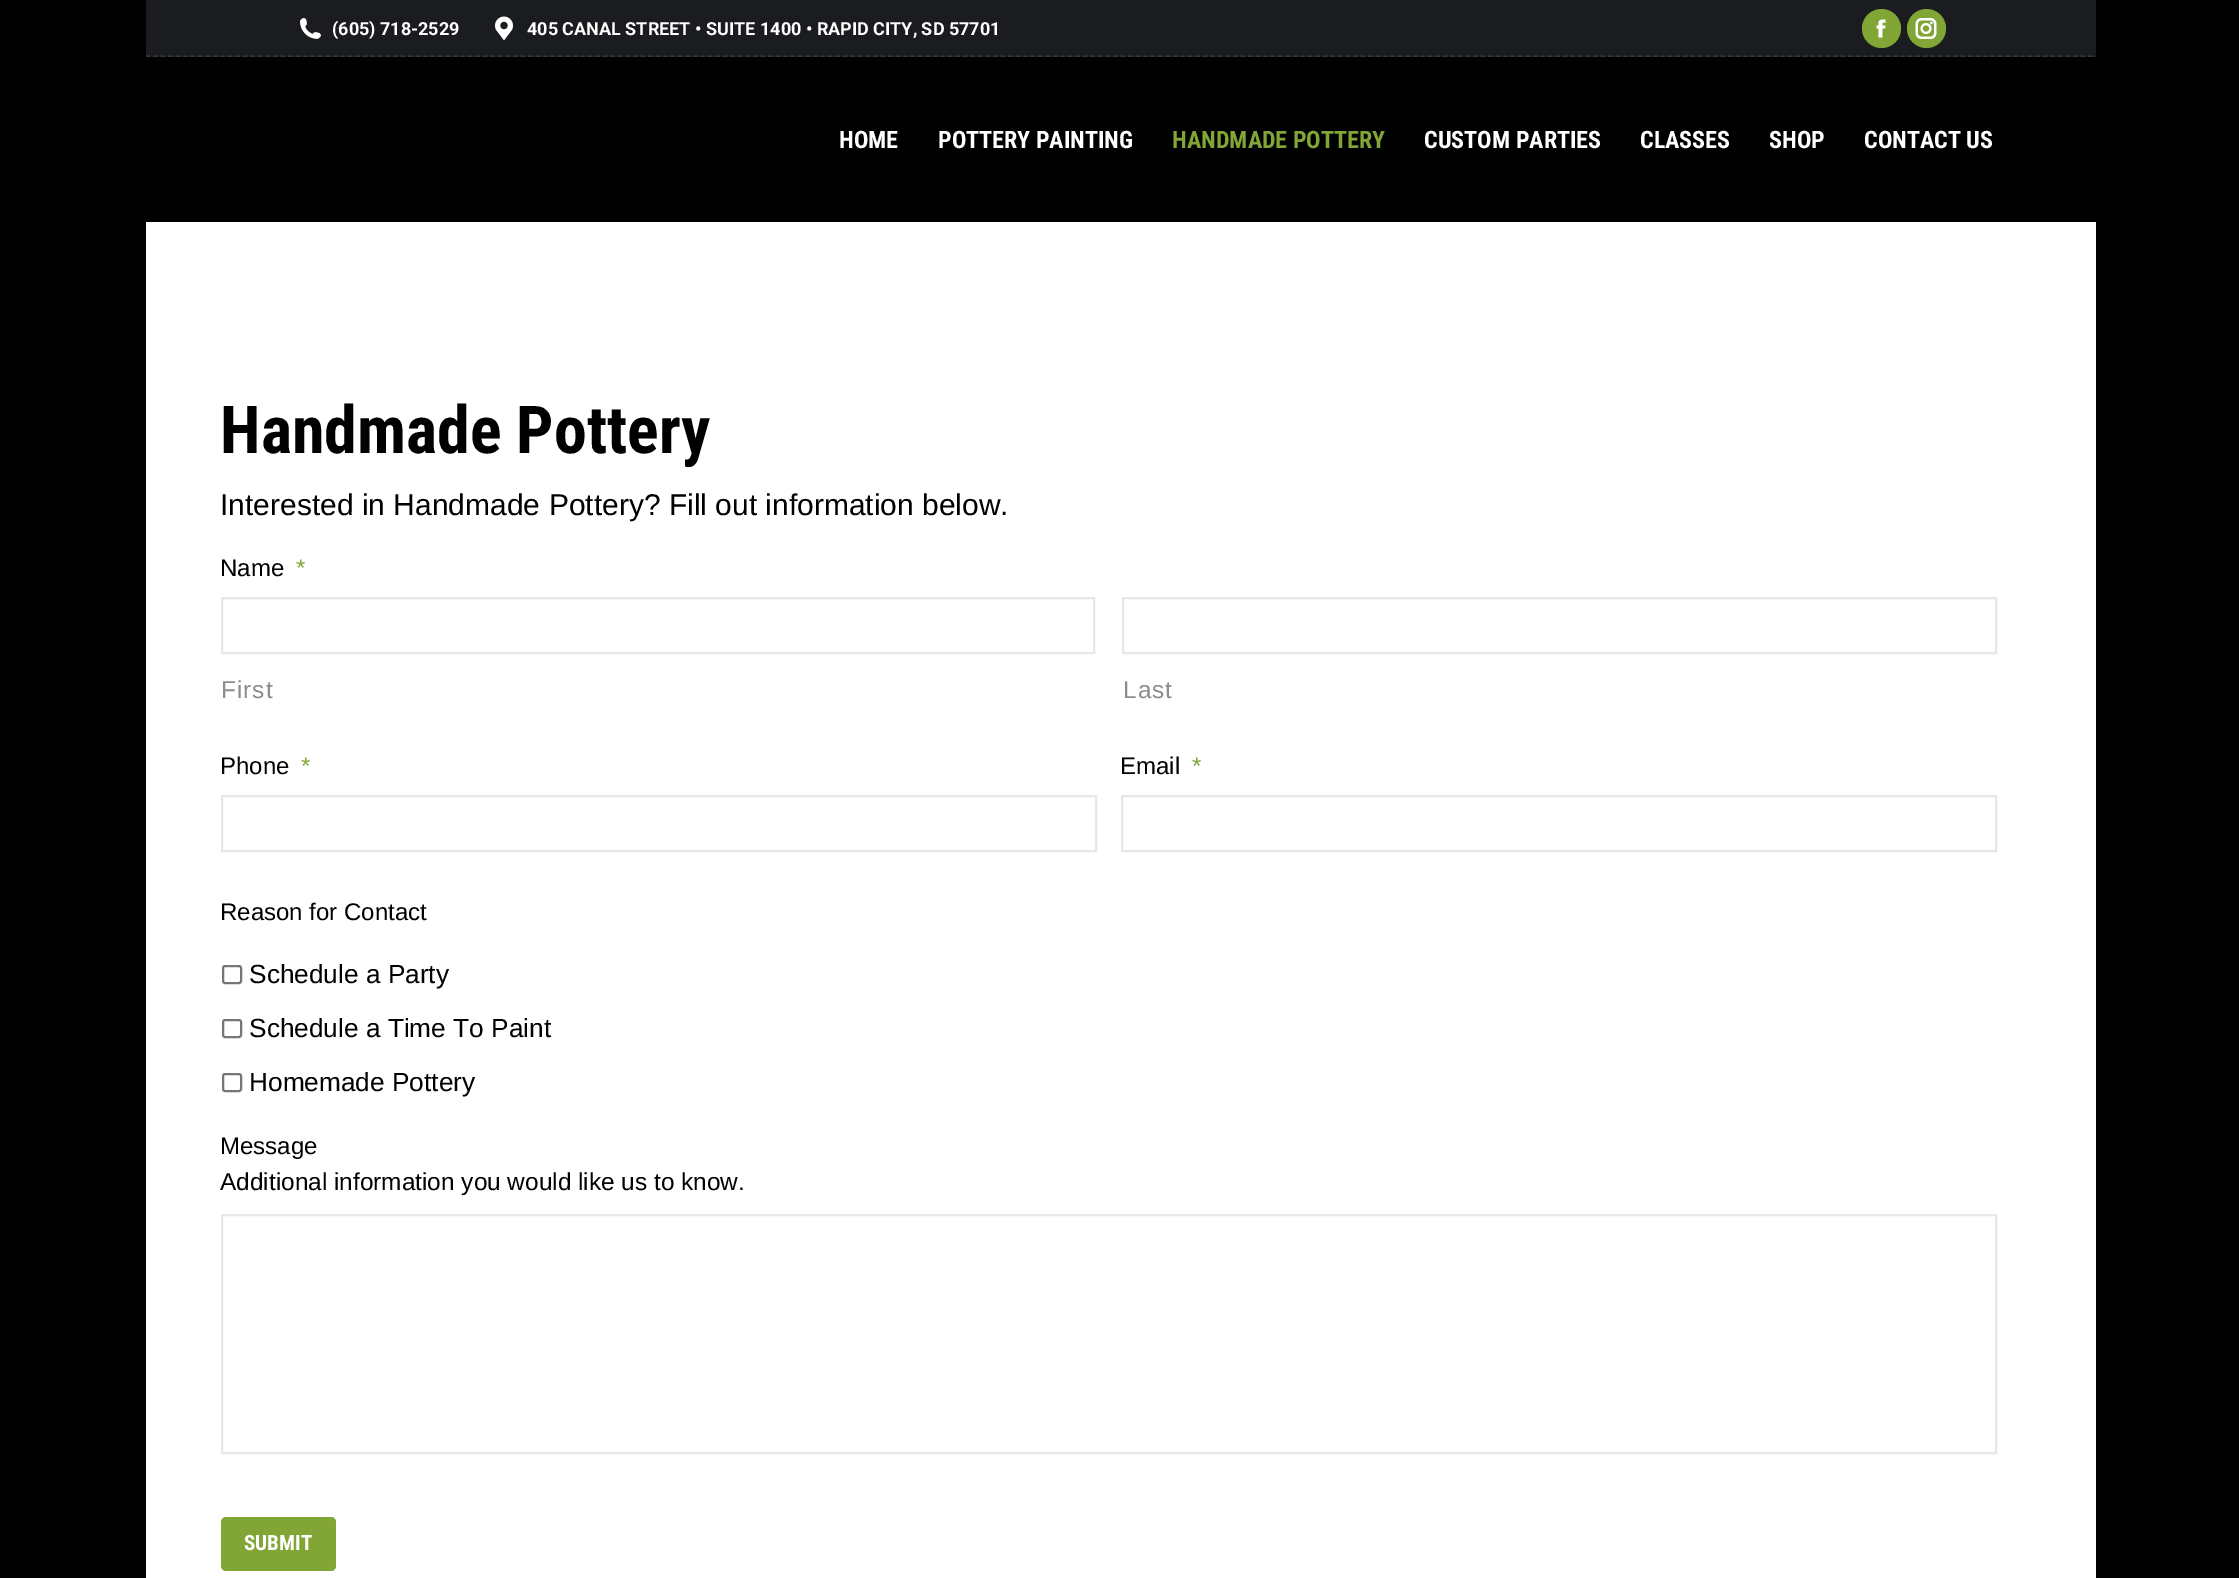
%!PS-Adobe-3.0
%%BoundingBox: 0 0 2239 1578
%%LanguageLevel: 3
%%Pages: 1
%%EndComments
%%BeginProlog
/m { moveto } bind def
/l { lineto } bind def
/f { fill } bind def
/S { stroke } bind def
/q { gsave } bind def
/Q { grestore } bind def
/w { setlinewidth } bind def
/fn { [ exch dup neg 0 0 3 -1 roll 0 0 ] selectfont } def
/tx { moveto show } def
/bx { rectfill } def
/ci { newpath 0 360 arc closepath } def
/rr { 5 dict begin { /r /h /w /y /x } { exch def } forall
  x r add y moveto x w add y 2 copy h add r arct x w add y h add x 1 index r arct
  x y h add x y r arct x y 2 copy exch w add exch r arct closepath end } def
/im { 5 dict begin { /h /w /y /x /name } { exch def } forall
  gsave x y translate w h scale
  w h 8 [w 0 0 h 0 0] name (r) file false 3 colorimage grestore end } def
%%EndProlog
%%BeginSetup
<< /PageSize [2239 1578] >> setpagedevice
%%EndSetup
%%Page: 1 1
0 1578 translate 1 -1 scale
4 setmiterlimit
0 setgray
0 0 2239 1578 bx
1 setgray
146 222 1950 1356 bx
0.102 0.11 0.125 setrgbcolor
146 0 1950 57 bx
(image0.raw) 300 18 21 21 im
/Roboto-Bold 18 fn
1 setgray
(\(605\) 718-2529) 332 35 tx
(image1.raw) 495 16 18 25 im
(405 CANAL STREET • SUITE 1400 • RAPID CITY, SD 57701) 527 35 tx
0.51 0.651 0.212 setrgbcolor
1881.5 28.5 19.5 ci f
(image2.raw) 1876 19 10 19 im
1926.5 28.5 19.5 ci f
(image3.raw) 1915 18 22 21 im
q
146 0 1950 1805 rectclip
0.208 0.216 0.231 setrgbcolor
1.5 w
[4.5 3] 0 setdash
-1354.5 56 m 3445.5 56 l S
Q
/RobotoCondensed-Bold 24 fn
1 setgray
(HOME) 839 148 tx
(POTTERY PAINTING) 938 148 tx
0.51 0.651 0.212 setrgbcolor
(HANDMADE POTTERY) 1172 148 tx
1 setgray
(CUSTOM PARTIES) 1424 148 tx
(CLASSES) 1640 148 tx
(SHOP) 1769 148 tx
(CONTACT US) 1864 148 tx
/RobotoCondensed-Bold 66 fn
0 setgray
(Handmade Pottery) 220 453 tx
/LiberationSans-Regular 30 fn
(Interested in Handmade Pottery? Fill out information below.) 220 515 tx
/LiberationSans-Regular 24 fn
(Name) 220 576 tx
0.51 0.651 0.212 setrgbcolor
(*) 296 576 tx
0.906 setgray
2 w
222 598 872 55 rectstroke
/LiberationSans-Regular 24.4 fn
0.549 setgray
221 698 m 1 0 (First) ashow
0.906 setgray
1123 598 873 55 rectstroke
0.549 setgray
1123 698 m 1 0 (Last) ashow
/LiberationSans-Regular 24 fn
0 setgray
(Phone) 220 774 tx
0.51 0.651 0.212 setrgbcolor
(*) 301 774 tx
0.906 setgray
222 796 874 55 rectstroke
0 setgray
(Email) 1120 774 tx
0.51 0.651 0.212 setrgbcolor
(*) 1192 774 tx
0.906 setgray
1122 796 874 55 rectstroke
0 setgray
(Reason for Contact) 220 920 tx
0.463 setgray
223 966 18 17 2 rr S
/LiberationSans-Regular 26.25 fn
0 setgray
(Schedule a Party) 249 983 tx
0.463 setgray
223 1020 18 17 2 rr S
0 setgray
(Schedule a Time To Paint) 249 1037 tx
0.463 setgray
223 1074 18 17 2 rr S
0 setgray
(Homemade Pottery) 249 1091 tx
/LiberationSans-Regular 24 fn
(Message) 220 1154 tx
/LiberationSans-Regular 24.4 fn
(Additional information you would like us to know.) 220 1190 tx
0.906 setgray
222 1215 1774 238 rectstroke
0.51 0.651 0.212 setrgbcolor
221 1517 115 54 5 rr f
/RobotoCondensed-Bold 21 fn
1 setgray
(SUBMIT) 244 1550 tx
showpage
%%EOF
